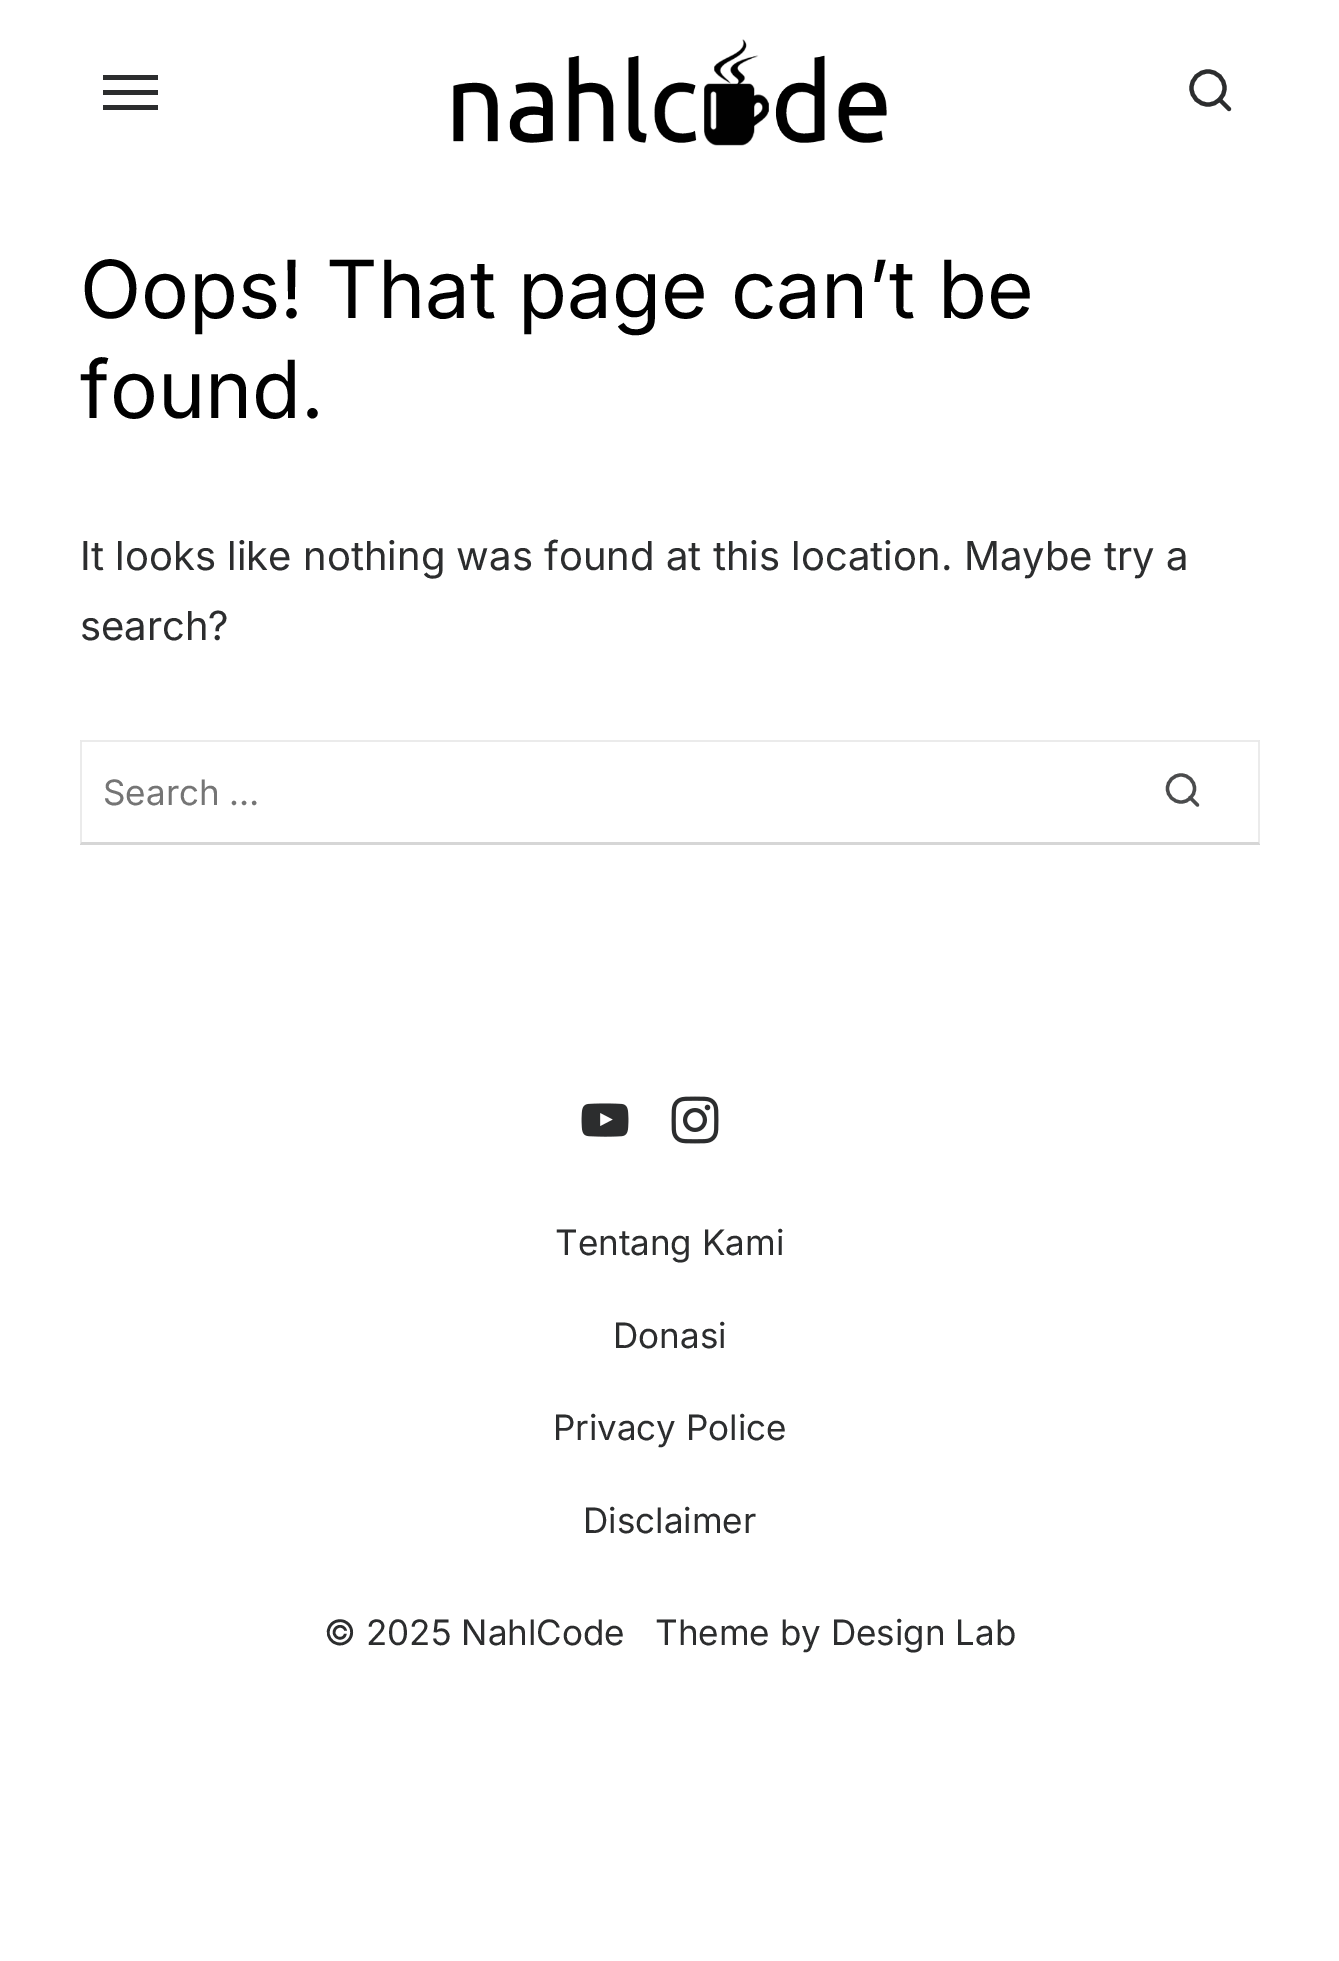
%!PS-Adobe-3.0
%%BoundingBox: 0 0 1339 1961
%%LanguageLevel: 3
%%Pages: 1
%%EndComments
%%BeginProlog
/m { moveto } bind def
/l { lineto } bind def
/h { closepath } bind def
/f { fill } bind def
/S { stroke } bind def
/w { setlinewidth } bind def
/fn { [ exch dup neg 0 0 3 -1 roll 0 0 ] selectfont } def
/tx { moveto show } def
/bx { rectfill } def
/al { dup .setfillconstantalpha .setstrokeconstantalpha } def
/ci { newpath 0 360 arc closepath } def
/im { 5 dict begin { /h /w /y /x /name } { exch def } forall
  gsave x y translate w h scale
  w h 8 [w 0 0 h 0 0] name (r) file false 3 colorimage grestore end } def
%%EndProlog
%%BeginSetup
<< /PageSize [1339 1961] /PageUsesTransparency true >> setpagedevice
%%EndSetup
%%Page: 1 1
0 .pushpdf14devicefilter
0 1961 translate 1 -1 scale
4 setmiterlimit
1 setgray
0 0 1339 1961 bx
0.173 0.176 0.18 setrgbcolor
103 90 55 5 bx
103 75 55 5 bx
103 105 55 5 bx
(image0.raw) 453 39 434 107 im
4.2 w
1208 88 16.5 ci S
1 setlinecap
1 setlinejoin
1229 109 m 1219.5 99.5 l S
/Inter-Regular 80 fn
0 setgray
(Oops! That page can’t be) 80 318 tx
(found.) 80 418 tx
/Inter-Regular 40 fn
0.173 0.176 0.18 setrgbcolor
(It looks like nothing was found at this location. Maybe try a) 80 570 tx
(search?) 80 640 tx
0.922 setgray
80 740 m 1260 740 l 1258 742 l 82 742 l h f
0.08 al
0 setgray
1260 740 m 1260 845 l 1258 842 l 1258 742 l h f
0.16 al
1260 845 m 80 845 l 82 842 l 1258 842 l h f
0.08 al
80 845 m 80 740 l 82 742 l 82 842 l h f
/Inter-Regular 35 fn
1 al
0.459 setgray
(Search …) 103 805 tx
0.294 0.298 0.302 setrgbcolor
3.3 w
0 setlinecap
0 setlinejoin
1181 788.5 13.5 ci S
1 setlinecap
1 setlinejoin
1197.5 805 m 1190 797.5 l S
(image1.raw) 581 1103 48 34 im
(image2.raw) 671 1096 48 48 im
0.173 0.176 0.18 setrgbcolor
(Tentang Kami) 555 1255 tx
(Donasi) 613 1348 tx
(Privacy Police) 553 1440 tx
(Disclaimer) 583 1533 tx
(© 2025 NahlCode) 324 1645 tx
(Theme by Design Lab) 655 1645 tx
.poppdf14devicefilter showpage
%%EOF
